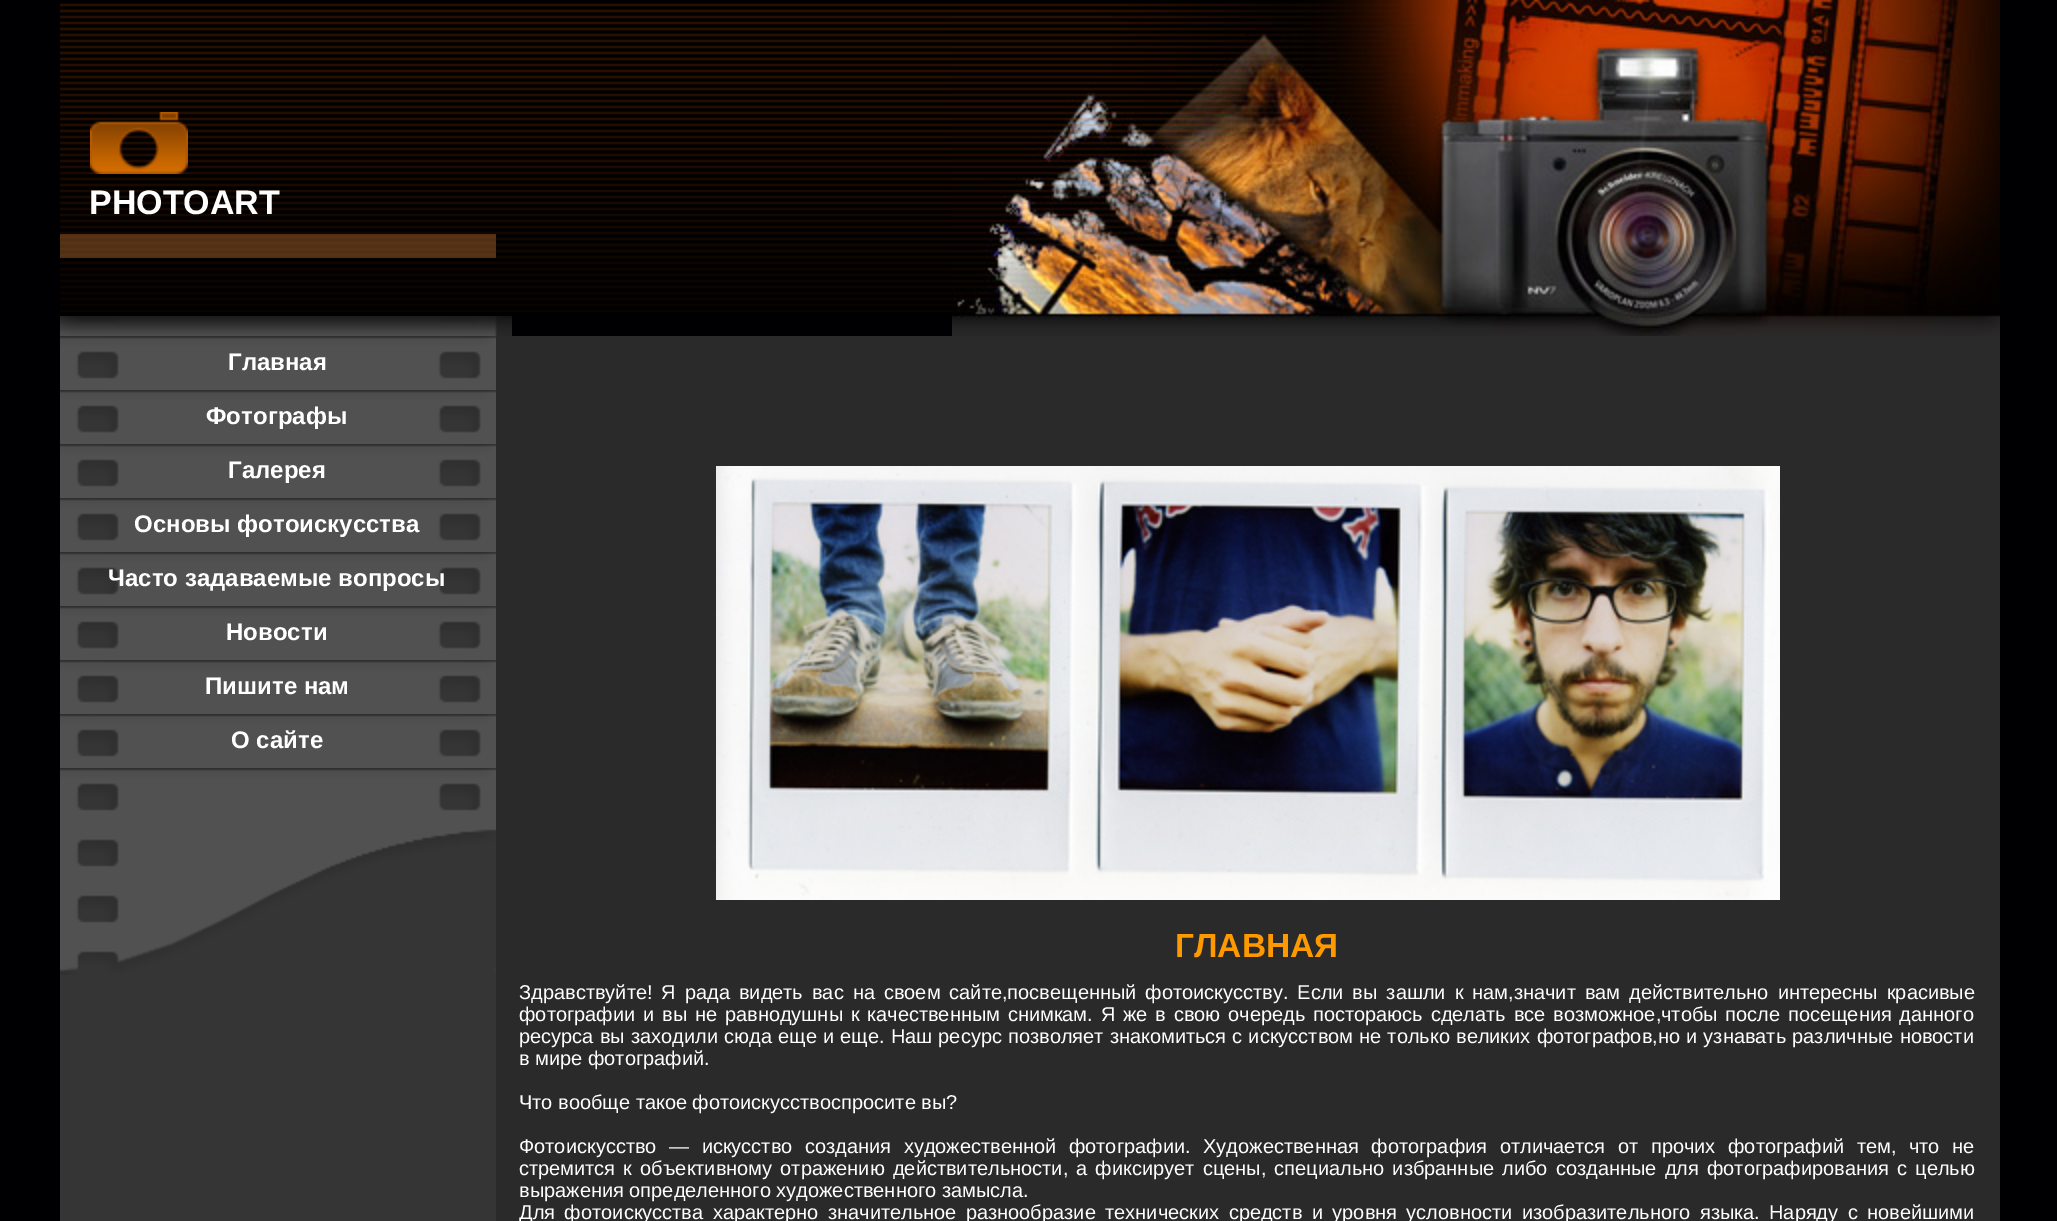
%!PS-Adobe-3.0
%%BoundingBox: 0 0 2057 1221
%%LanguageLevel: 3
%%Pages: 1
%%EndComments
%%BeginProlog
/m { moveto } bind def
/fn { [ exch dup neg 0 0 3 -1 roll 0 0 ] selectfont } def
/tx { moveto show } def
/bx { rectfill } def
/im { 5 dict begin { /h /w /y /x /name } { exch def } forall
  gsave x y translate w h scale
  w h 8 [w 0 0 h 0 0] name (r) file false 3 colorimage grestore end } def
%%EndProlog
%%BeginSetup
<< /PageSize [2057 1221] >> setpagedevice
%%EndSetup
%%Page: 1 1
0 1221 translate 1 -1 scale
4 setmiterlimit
0 0 0.008 setrgbcolor
0 0 2057 1221 bx
(image0.raw) 60 3 892 309 im
(image1.raw) 90 112 98 62 im
/LiberationSans-Bold 34 fn
1 setgray
(PHOTOART) 89 214 tx
(image2.raw) 60 234 436 24 im
(image3.raw) 60 316 452 20 im
(image4.raw) 952 0 1048 336 im
0.165 setgray
496 336 1504 885 bx
0.208 setgray
60 975 436 246 bx
(image5.raw) 60 336 436 54 im
/LiberationSans-Bold 24 fn
1 setgray
(Главная) 228 370 tx
(image5.raw) 60 390 436 54 im
(Фотографы) 206 424 tx
(image5.raw) 60 444 436 54 im
(Галерея) 228 478 tx
(image5.raw) 60 498 436 54 im
(Основы фотоискусства) 134 532 tx
(image5.raw) 60 552 436 54 im
(Часто задаваемые вопросы) 108 586 tx
(image5.raw) 60 606 436 54 im
(Новости) 226 640 tx
(image5.raw) 60 660 436 54 im
(Пишите нам) 205 694 tx
(image5.raw) 60 714 436 54 im
(О сайте) 231 748 tx
(image6.raw) 60 768 436 207 im
(image7.raw) 716 466 1064 434 im
/LiberationSans-Bold 33.5 fn
1 0.6 0 setrgbcolor
(ГЛАВНАЯ) 1175 957 tx
/LiberationSans-Regular 20 fn
1 setgray
519 999 m 3.4 0 32 (Здравствуйте! Я рада видеть вас на своем сайте,посвещенный фотоискусству. Если вы зашли к нам,значит вам действительно интересны красивые) widthshow
519 1021 m 2.25 0 32 (фотографии и вы не равнодушны к качественным снимкам. Я же в свою очередь постораюсь сделать все возможное,чтобы после посещения данного) widthshow
519 1043 m 0.6 0 32 (ресурса вы заходили сюда еще и еще. Наш ресурс позволяет знакомиться с искусством не только великих фотографов,но и узнавать различные новости) widthshow
(в мире фотографий.) 519 1065 tx
(Что вообще такое фотоискусствоспросите вы?) 519 1109 tx
519 1153 m 7 0 32 (Фотоискусство — искусство создания художественной фотографии. Художественная фотография отличается от прочих фотографий тем, что не) widthshow
519 1175 m 2.6 0 32 (стремится к объективному отражению действительности, а фиксирует сцены, специально избранные либо созданные для фотографирования с целью) widthshow
(выражения определенного художественного замысла.) 519 1197 tx
519 1219 m 3.9 0 32 (Для фотоискусства характерно значительное разнообразие технических средств и уровня условности изобразительного языка. Наряду с новейшими) widthshow
showpage
%%EOF
